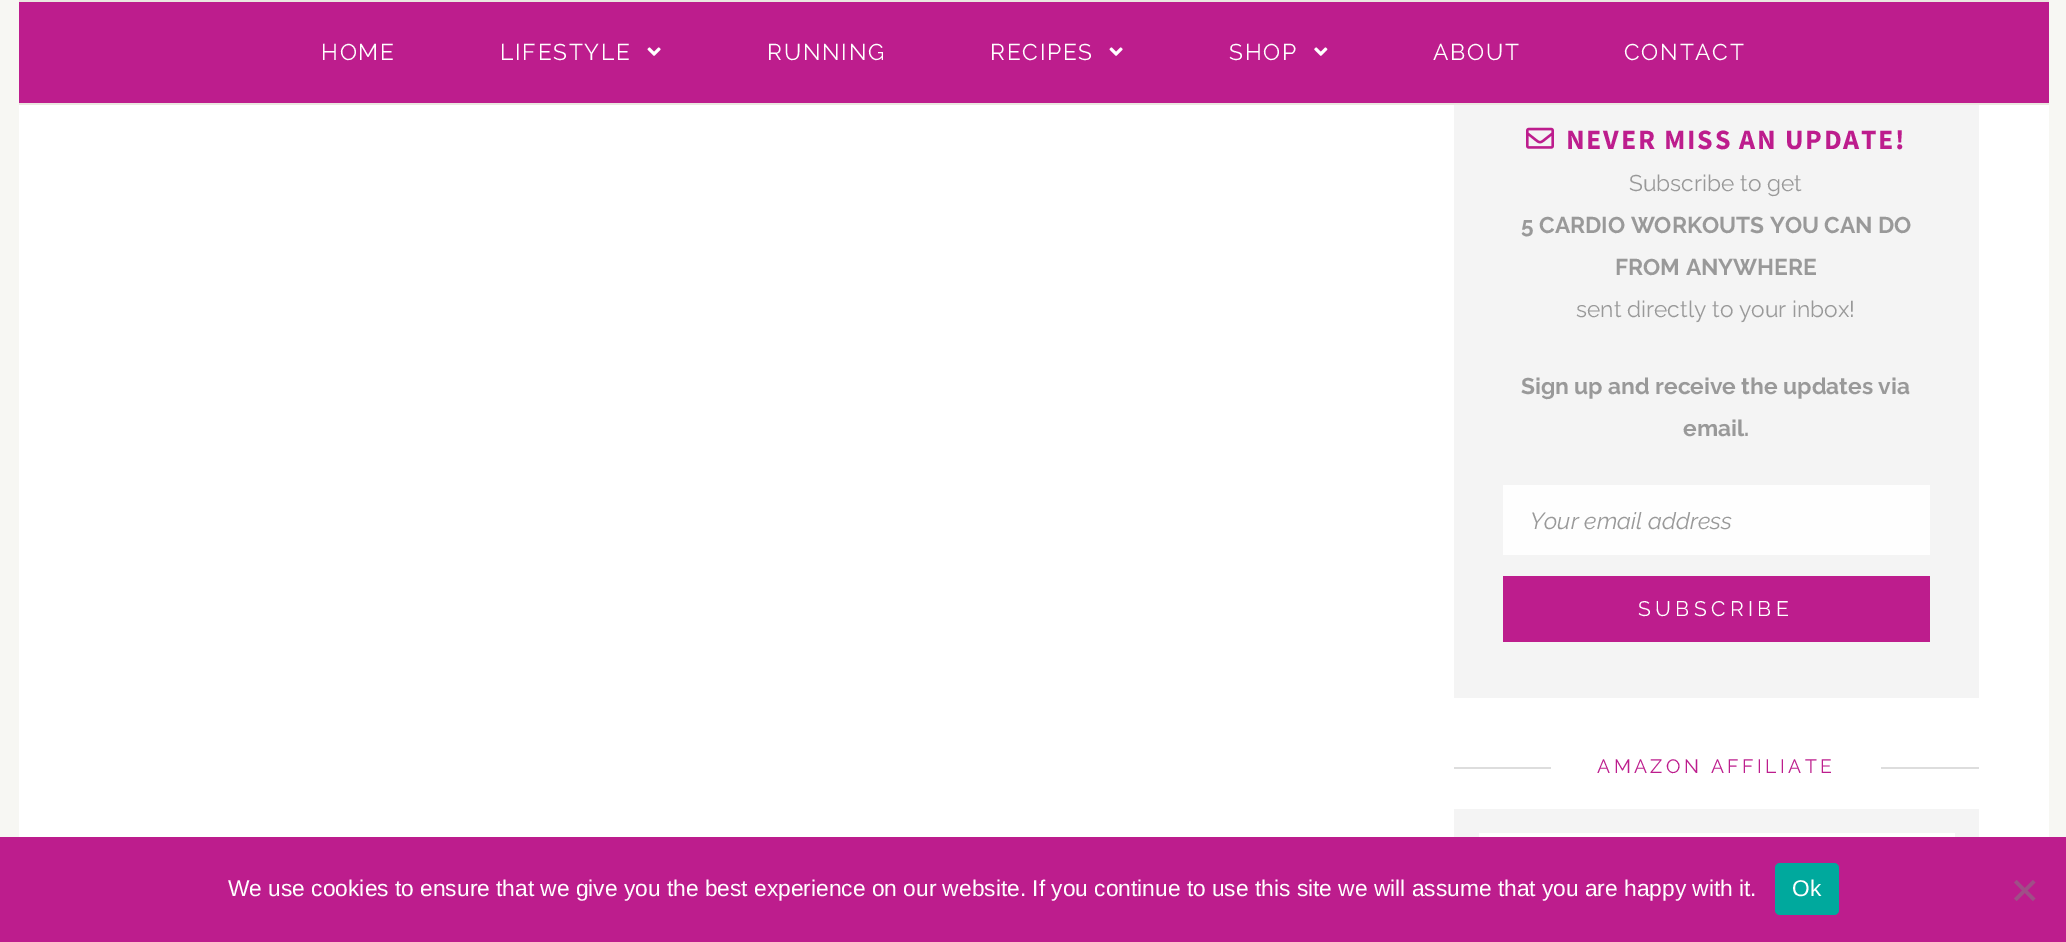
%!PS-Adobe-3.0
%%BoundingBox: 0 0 2066 942
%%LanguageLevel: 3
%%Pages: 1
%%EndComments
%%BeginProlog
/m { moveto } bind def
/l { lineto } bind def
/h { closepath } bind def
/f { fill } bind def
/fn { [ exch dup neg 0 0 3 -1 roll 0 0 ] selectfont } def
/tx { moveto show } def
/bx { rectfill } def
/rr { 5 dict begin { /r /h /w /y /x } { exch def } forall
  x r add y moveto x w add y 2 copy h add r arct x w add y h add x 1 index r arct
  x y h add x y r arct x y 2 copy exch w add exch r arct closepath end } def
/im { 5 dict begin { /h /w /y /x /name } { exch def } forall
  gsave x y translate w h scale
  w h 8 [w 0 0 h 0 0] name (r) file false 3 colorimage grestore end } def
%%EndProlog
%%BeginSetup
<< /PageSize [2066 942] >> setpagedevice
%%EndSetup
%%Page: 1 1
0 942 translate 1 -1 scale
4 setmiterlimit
0.969 0.969 0.953 setrgbcolor
0 0 2066 942 bx
1 setgray
19 105 2030 732 bx
0.741 0.114 0.553 setrgbcolor
19 2 2030 101 bx
0.918 0.91 0.878 setrgbcolor
19 0 2030 2 bx
19 103 2030 2 bx
/Raleway-Regular 22.75 fn
1 setgray
321 60 m 1.75 0 (HOME) ashow
500 60 m 1.75 0 (LIFESTYLE) ashow
(image0.raw) 647 47 14 9 im
767 60 m 1.75 0 (RUNNING) ashow
990 60 m 1.75 0 (RECIPES) ashow
(image0.raw) 1109 47 14 9 im
1229 60 m 1.75 0 (SHOP) ashow
(image1.raw) 1314 47 14 9 im
1433 60 m 1.75 0 (ABOUT) ashow
1624 60 m 1.75 0 (CONTACT) ashow
0.957 setgray
1454 105 525 593 bx
(image2.raw) 1526 127 28 22 im
/SourceSansPro-Bold 28 fn
0.741 0.114 0.553 setrgbcolor
1566 149 m 1.75 0 (NEVER MISS AN UPDATE!) ashow
/Raleway-Regular 22.75 fn
0.6 setgray
(Subscribe to get) 1629 191 tx
/Raleway-Bold 22.75 fn
(5 CARDIO WORKOUTS YOU CAN DO) 1521 233 tx
(FROM ANYWHERE) 1615 275 tx
/Raleway-Regular 22.75 fn
(sent directly to your inbox!) 1576 317 tx
/Raleway-Bold 22.75 fn
(Sign up and receive the updates via) 1521 394 tx
(email.) 1683 436 tx
0.996 setgray
1503 485 427 70 bx
/Raleway-Italic 23.25 fn
0.6 setgray
(Your email address) 1530 529 tx
0.741 0.114 0.553 setrgbcolor
1503 576 427 66 bx
/Raleway-Regular 21 fn
1 setgray
1638 616 m 4.4 0 (SUBSCRIBE) ashow
0.867 setgray
1454 767 97 2 bx
/Raleway-Regular 19.25 fn
0.741 0.114 0.553 setrgbcolor
1597 773 m 3.5 0 (AMAZON AFFILIATE) ashow
0.867 setgray
1881 767 98 2 bx
0.957 setgray
1454 809 525 28 bx
1 setgray
1479 833 476 4 bx
0.741 0.114 0.553 setrgbcolor
0 837 2066 105 bx
/LiberationSans-Regular 22.75 fn
1 setgray
(We use cookies to ensure that we give you the best experience on our website. If you continue to use this site we will assume that you are happy with it.) 228 896 tx
0 0.663 0.616 setrgbcolor
1775 863 64 52 5 rr f
1 setgray
(Ok) 1792 896 tx
0.624 0.31 0.529 setrgbcolor
2033 880 m 2035.5 882.5 l 2016.5 901 l 2014 898.5 l h f
2014 882.5 m 2016.5 880 l 2035.5 898.5 l 2033 901 l h f
showpage
%%EOF
